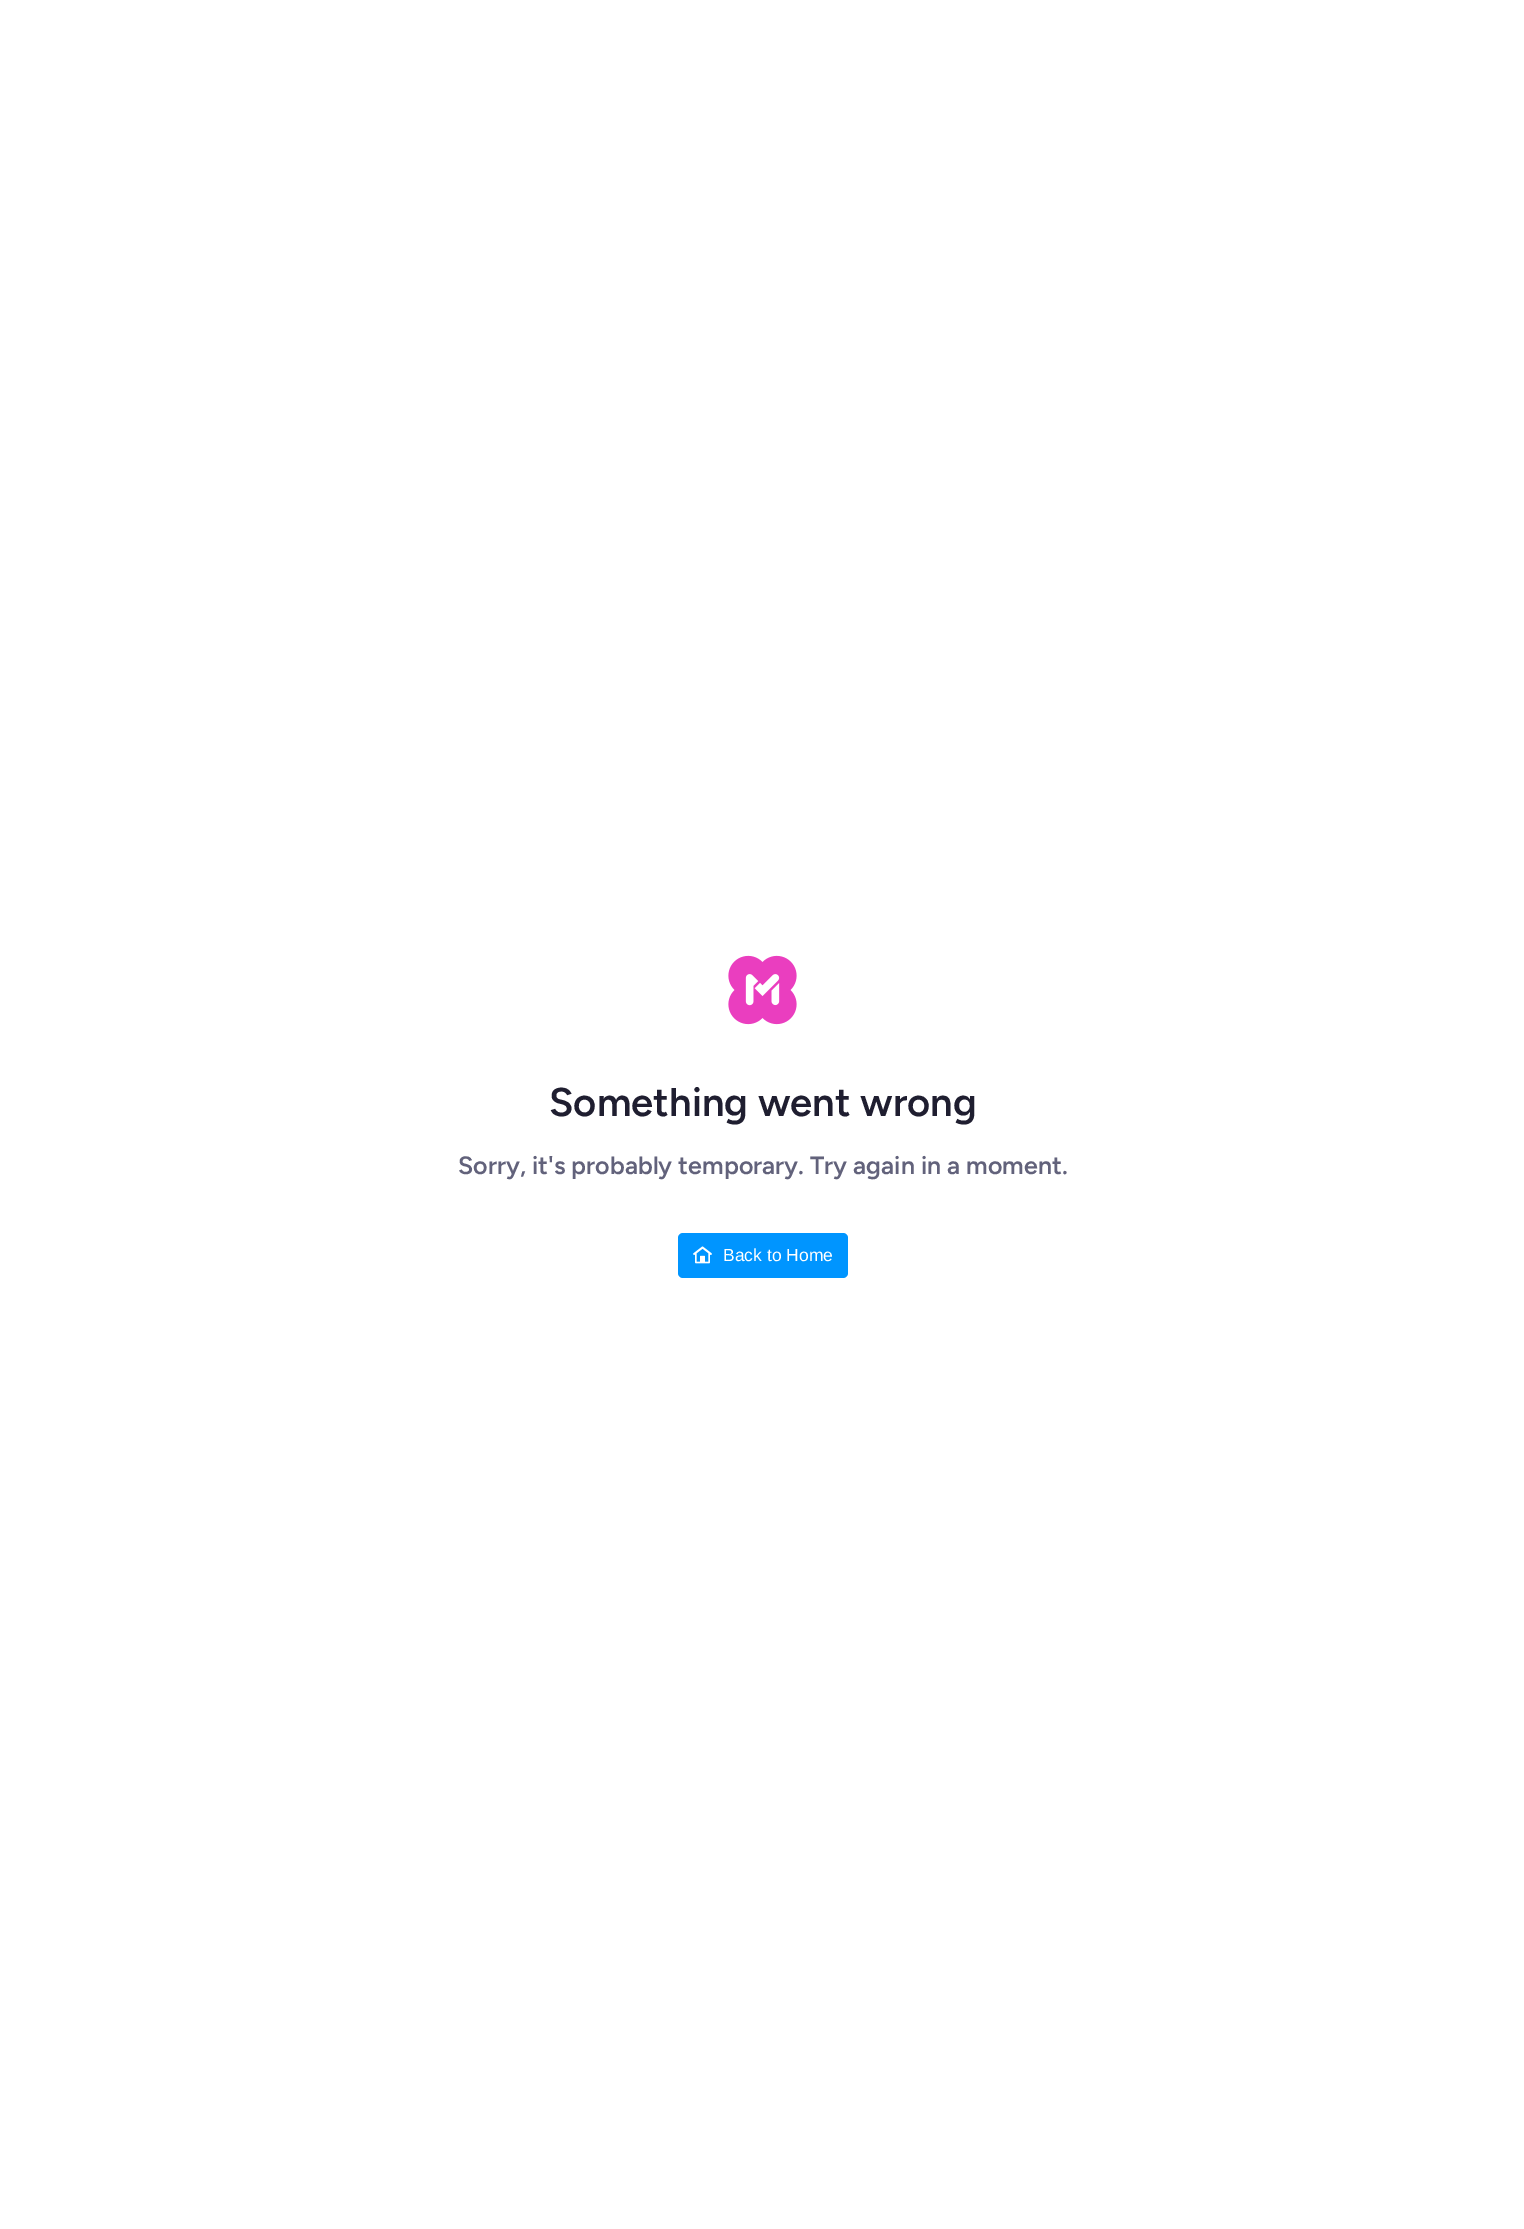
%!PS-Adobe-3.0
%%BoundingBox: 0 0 1524 2229
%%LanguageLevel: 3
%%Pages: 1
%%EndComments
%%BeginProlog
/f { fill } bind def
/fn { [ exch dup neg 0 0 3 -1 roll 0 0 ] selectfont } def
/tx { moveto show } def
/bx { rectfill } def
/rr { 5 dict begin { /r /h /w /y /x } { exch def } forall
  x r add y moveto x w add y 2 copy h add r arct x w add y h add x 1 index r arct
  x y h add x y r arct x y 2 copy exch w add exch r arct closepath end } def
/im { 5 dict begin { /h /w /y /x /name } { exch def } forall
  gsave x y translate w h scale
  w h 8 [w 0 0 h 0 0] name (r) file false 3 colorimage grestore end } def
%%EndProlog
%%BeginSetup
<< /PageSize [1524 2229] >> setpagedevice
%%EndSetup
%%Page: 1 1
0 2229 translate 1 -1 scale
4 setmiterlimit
1 setgray
0 0 1524 2229 bx
(image0.raw) 728 955 69 70 im
/Figtree-SemiBold 40 fn
0.122 0.118 0.188 setrgbcolor
(Something went wrong) 549 1116 tx
/Figtree-SemiBold 25 fn
0.384 0.384 0.482 setrgbcolor
(Sorry, it's probably temporary. Try again in a moment.) 458 1174 tx
0 0.584 1 setrgbcolor
678 1233 170 45 5 rr f
(image1.raw) 693 1246 19 18 im
/LiberationSans-Regular 17.5 fn
1 setgray
(Back to Home) 723 1261 tx
showpage
%%EOF
